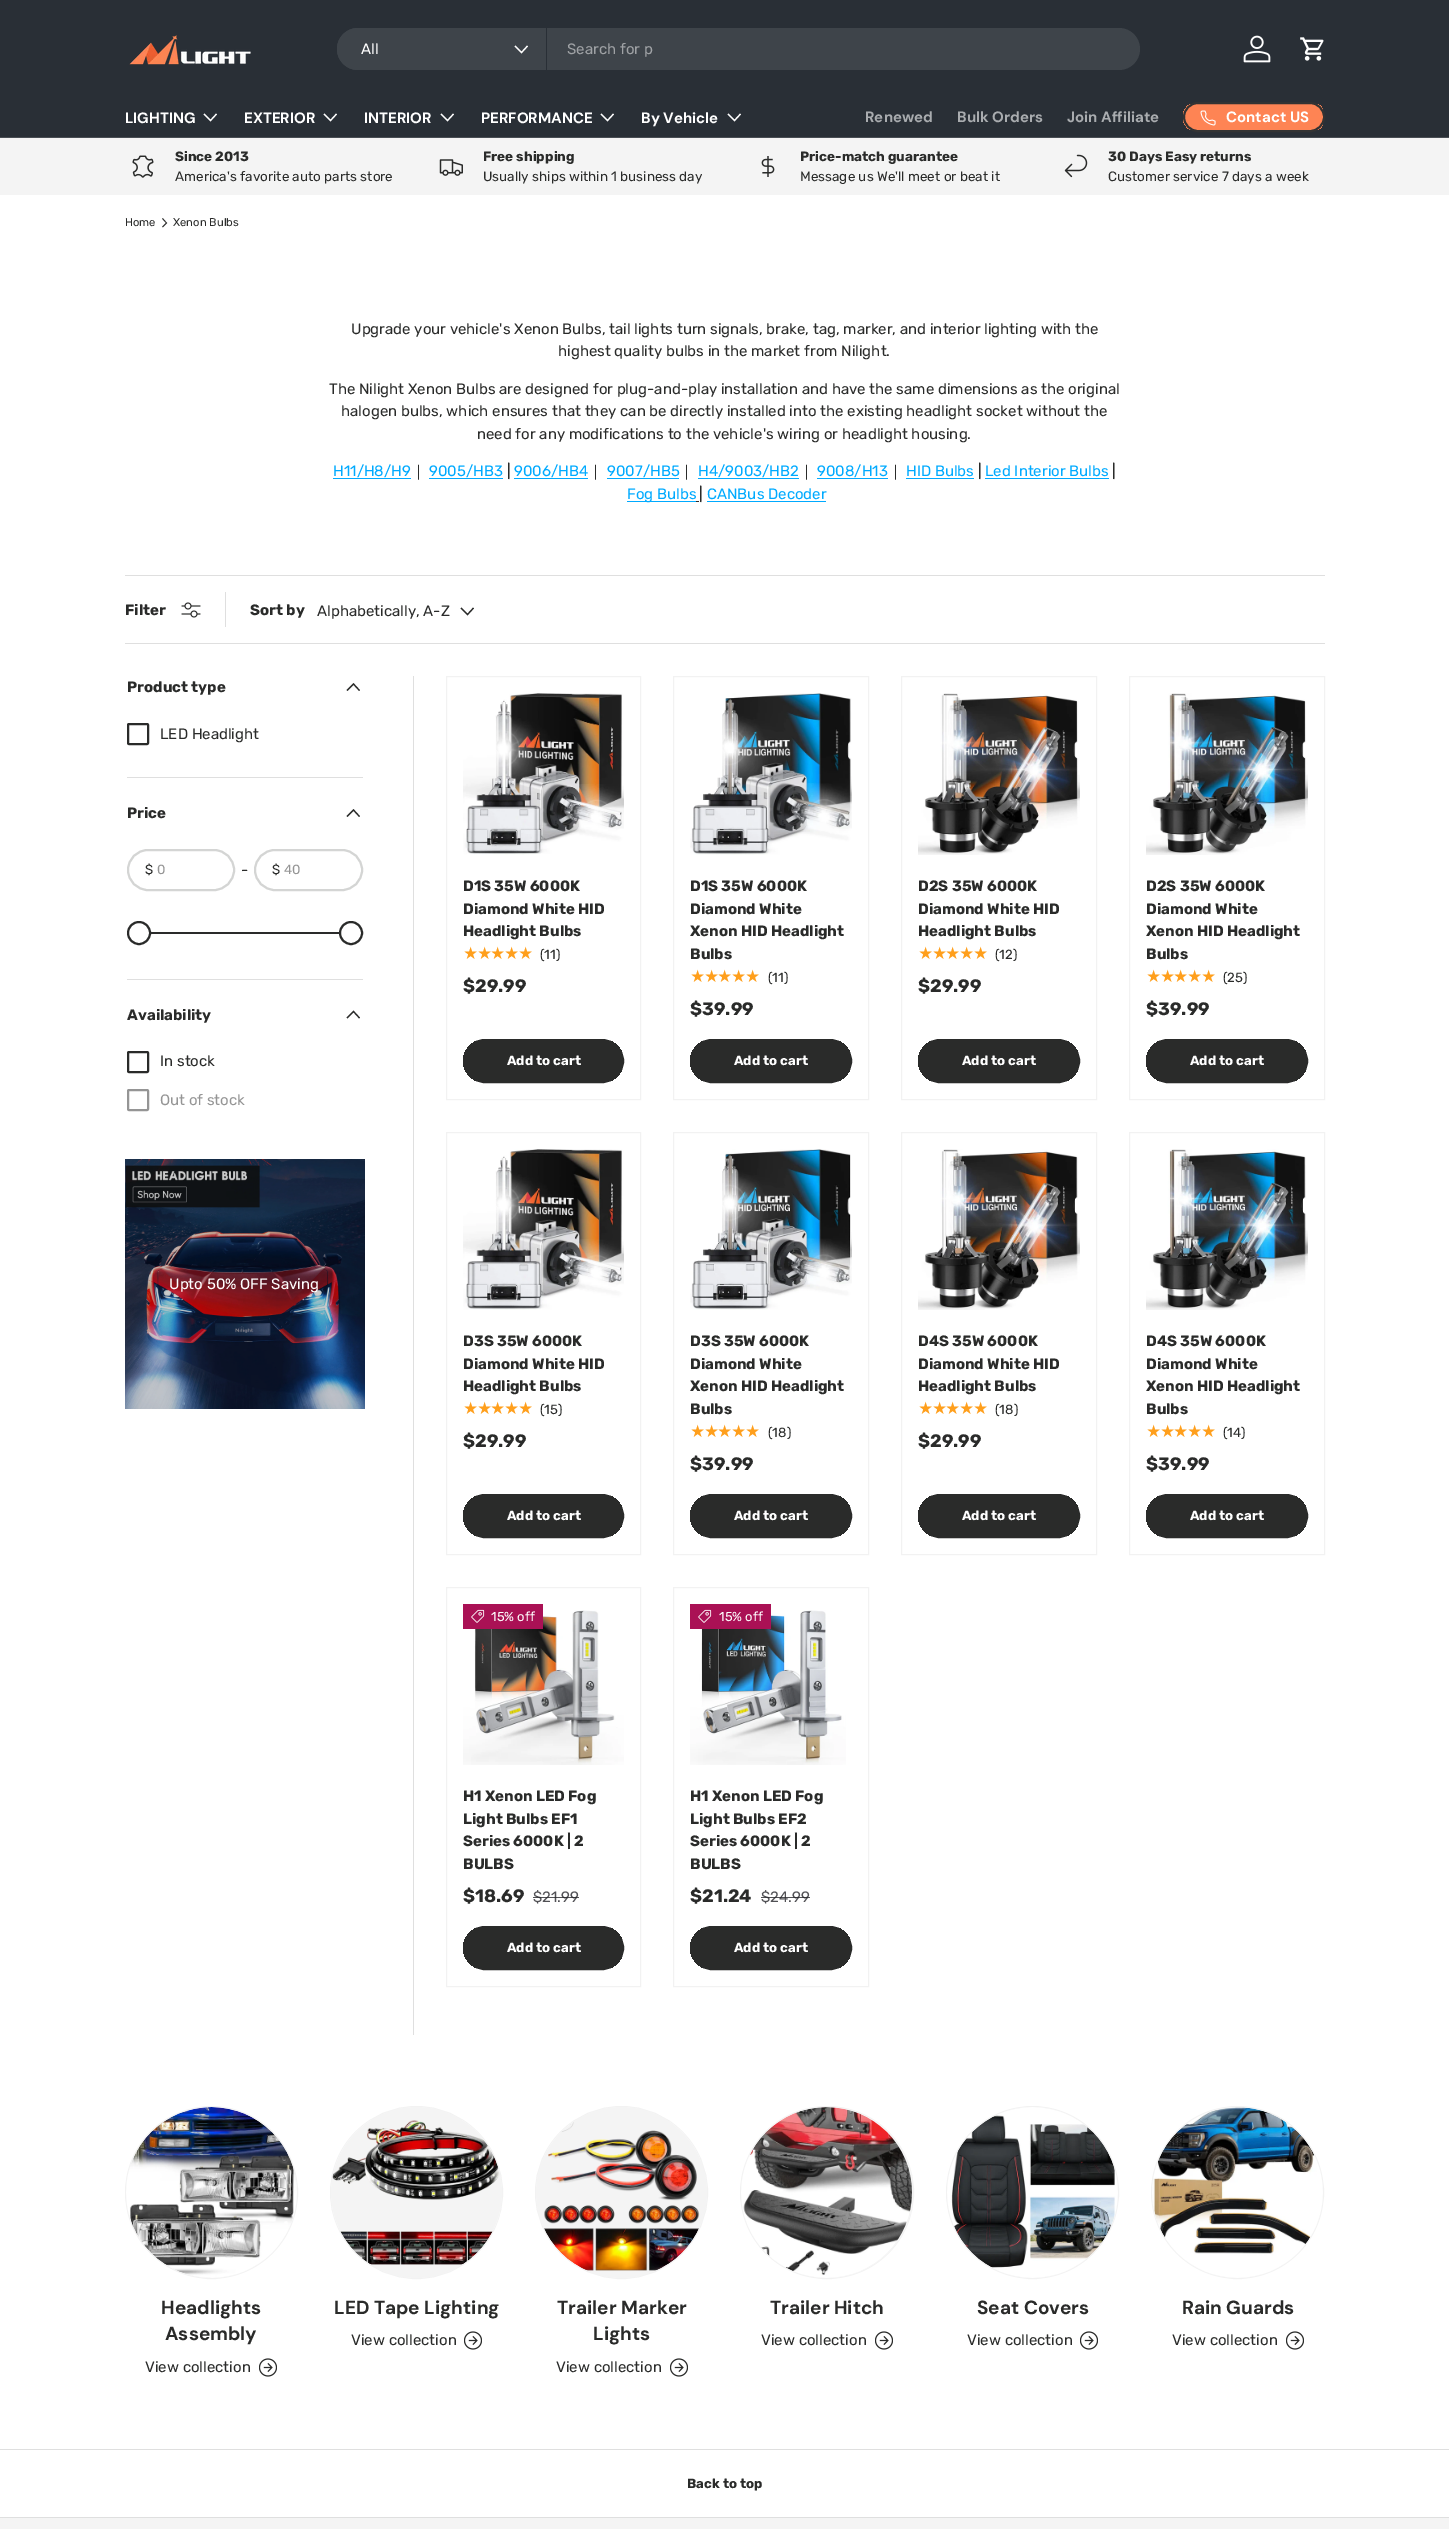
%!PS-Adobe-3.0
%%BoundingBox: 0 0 1449 2529
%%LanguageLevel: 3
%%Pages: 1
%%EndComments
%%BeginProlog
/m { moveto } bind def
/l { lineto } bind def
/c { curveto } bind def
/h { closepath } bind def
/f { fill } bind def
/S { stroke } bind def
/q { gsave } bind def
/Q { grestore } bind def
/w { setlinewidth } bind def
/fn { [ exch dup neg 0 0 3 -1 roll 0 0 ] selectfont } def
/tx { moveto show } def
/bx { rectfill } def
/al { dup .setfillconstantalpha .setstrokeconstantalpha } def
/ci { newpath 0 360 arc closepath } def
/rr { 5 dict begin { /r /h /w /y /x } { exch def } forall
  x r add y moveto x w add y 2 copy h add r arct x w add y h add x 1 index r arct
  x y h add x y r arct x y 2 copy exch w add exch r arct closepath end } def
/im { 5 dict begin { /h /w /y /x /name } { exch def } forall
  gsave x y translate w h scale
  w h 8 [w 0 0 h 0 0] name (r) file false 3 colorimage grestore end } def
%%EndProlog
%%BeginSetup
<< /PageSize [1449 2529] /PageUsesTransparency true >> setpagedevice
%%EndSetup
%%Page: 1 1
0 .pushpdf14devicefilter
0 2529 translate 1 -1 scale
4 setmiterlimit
1 setgray
0 0 1449 2529 bx
0.161 0.184 0.212 setrgbcolor
0 0 1449 137 bx
0.286 0.306 0.329 setrgbcolor
0 137 1449 1 bx
(image0.raw) 129 35 122 30 im
0.243 0.267 0.29 setrgbcolor
337 28 803 42 21 rr f
358 28 m 547 28 l 547 70 l 358 70 l 346.5 70 337 60.5 337 49 c 337 37.5 346.5 28 358 28 c h f
0.161 0.184 0.212 setrgbcolor
546 28 1 42 bx
/Rubik-Regular 15 fn
1 setgray
(All) 361 54 tx
1.2 w
527.5 46 m 521.5 52.5 l 515 46 l S
0.624 0.635 0.647 setrgbcolor
(Search for p) 567 54 tx
(image1.raw) 1243 35 28 28 im
(image2.raw) 1300 37 24 24 im
/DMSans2-Bold 15 fn
1 setgray
(LIGHTING) 125 123 tx
216.5 114 m 210.5 120.5 l 204 114 l S
(EXTERIOR) 244 123 tx
336.5 114 m 330.5 120.5 l 324 114 l S
(INTERIOR) 364 123 tx
453.5 114 m 447.5 120.5 l 441 114 l S
(PERFORMANCE) 481 123 tx
613.5 114 m 607.5 120.5 l 601 114 l S
(By Vehicle) 641 123 tx
740.5 114 m 734.5 120.5 l 728 114 l S
0.663 0.675 0.686 setrgbcolor
(Renewed) 865 122 tx
(Bulk Orders) 957 122 tx
(Join Affiliate) 1067 122 tx
q
1183 102 142 30 15 rr clip newpath
q 1183 104 m 1323 104 l 1323 130 l 1183 130 l h clip newpath
<< /ShadingType 2 /ColorSpace /DeviceRGB /Coords [918 68 1314 166] /Extend [true true] /Function << /FunctionType 3 /Domain [0 1] /Functions [<< /FunctionType 2 /Domain [0 1] /C0 [0.996 0.631 0.49] /C1 [0.996 0.631 0.49] /N 1 >> << /FunctionType 2 /Domain [0 1] /C0 [0.996 0.518 0.329] /C1 [0.996 0.518 0.329] /N 1 >>] /Bounds [0.6] /Encode [0 1 0 1] >> >> shfill Q
Q
0.2 setgray
2 w
1184 103 140 28 14 rr S
(image3.raw) 1200 110 16 16 im
1 setgray
(Contact US) 1226 122 tx
0.957 setgray
0 138 1449 57 bx
(image4.raw) 132 155 22 23 im
/Rubik-Bold 13.5 fn
0.165 0.169 0.165 setrgbcolor
(Since 2013) 175 161 tx
/Rubik-Regular 13.5 fn
(America's favorite auto parts store) 175 181 tx
(image5.raw) 439 159 24 17 im
/Rubik-Bold 13.5 fn
(Free shipping) 483 161 tx
/Rubik-Regular 13.5 fn
(Usually ships within 1 business day) 483 181 tx
(image6.raw) 761 156 14 21 im
/Rubik-Bold 13.5 fn
(Price-match guarantee) 800 161 tx
/Rubik-Regular 13.5 fn
(Message us We'll meet or beat it) 800 181 tx
(image7.raw) 1064 154 24 24 im
/Rubik-Bold 13.5 fn
(30 Days Easy returns) 1108 161 tx
/Rubik-Regular 13.5 fn
(Customer service 7 days a week) 1108 181 tx
/Rubik-Regular 11.25 fn
(Home) 125 226 tx
0.8 w
162.5 218.5 m 166.5 223 l 162.5 227 l S
(Xenon Bulbs) 173 226 tx
/Rubik-Regular 15 fn
(Upgrade your vehicle's Xenon Bulbs, tail lights turn signals, brake, tag, marker, and interior lighting with the) 351 334 tx
(highest quality bulbs in the market from Nilight.) 558 356 tx
(The Nilight Xenon Bulbs are designed for plug-and-play installation and have the same dimensions as the original) 329 394 tx
(halogen bulbs, which ensures that they can be directly installed into the existing headlight socket without the) 341 416 tx
(need for any modifications to the vehicle's wiring or headlight housing.) 477 439 tx
0 0.667 1 setrgbcolor
(H11/H8/H9) 333 476 tx
333 478 78 1 bx
/WenQuanYiZenHei-Medium 15 fn
0.165 0.169 0.165 setrgbcolor
(｜) 411 476 tx
/Rubik-Regular 15 fn
0 0.667 1 setrgbcolor
(9005/HB3) 429 476 tx
429 478 74 1 bx
0.165 0.169 0.165 setrgbcolor
(|) 507 476 tx
0 0.667 1 setrgbcolor
(9006/HB4) 514 476 tx
514 478 74 1 bx
/WenQuanYiZenHei-Medium 15 fn
0.165 0.169 0.165 setrgbcolor
(｜) 588 476 tx
/Rubik-Regular 15 fn
0 0.667 1 setrgbcolor
(9007/HB5) 607 476 tx
607 478 72 1 bx
/WenQuanYiZenHei-Medium 15 fn
0.165 0.169 0.165 setrgbcolor
(｜) 679 476 tx
/Rubik-Regular 15 fn
0 0.667 1 setrgbcolor
(H4/9003/HB2) 698 476 tx
698 478 101 1 bx
/WenQuanYiZenHei-Medium 15 fn
0.165 0.169 0.165 setrgbcolor
(｜) 799 476 tx
/Rubik-Regular 15 fn
0 0.667 1 setrgbcolor
(9008/H13) 817 476 tx
817 478 71 1 bx
/WenQuanYiZenHei-Medium 15 fn
0.165 0.169 0.165 setrgbcolor
(｜) 888 476 tx
/Rubik-Regular 15 fn
0 0.667 1 setrgbcolor
(HID Bulbs) 906 476 tx
906 478 68 1 bx
0.165 0.169 0.165 setrgbcolor
(|) 978 476 tx
0 0.667 1 setrgbcolor
(Led Interior Bulbs) 985 476 tx
985 478 124 1 bx
0.165 0.169 0.165 setrgbcolor
(|) 1112 476 tx
0 0.667 1 setrgbcolor
627 501 69 1 bx
(Fog Bulbs) 627 499 tx
0.165 0.169 0.165 setrgbcolor
(|) 699 499 tx
0 0.667 1 setrgbcolor
(CANBus Decoder) 707 499 tx
707 501 119 1 bx
0.165 0.169 0.165 setrgbcolor
696 501 3 1 bx
0.875 setgray
125 575 1200 1 bx
125 643 1200 1 bx
/Rubik-Bold 15 fn
0.165 0.169 0.165 setrgbcolor
(Filter) 125 615 tx
(image8.raw) 181 602 20 16 im
0.875 setgray
225 592 1 35 bx
0.165 0.169 0.165 setrgbcolor
(Sort by) 250 615 tx
/Rubik-Regular 15 fn
(Alphabetically, A-Z) 317 616 tx
1.2 w
473.5 608 m 467.5 614.5 l 461 608 l S
0.875 setgray
413 676 1 1359 bx
127 777 236 1 bx
/Rubik-Bold 15 fn
0.165 0.169 0.165 setrgbcolor
(Product type) 127 692 tx
359.5 690.5 m 353.5 684 l 347 690.5 l S
2 w
128 724 20 20 1 rr S
/Rubik-Regular 15 fn
(LED Headlight) 160 739 tx
0.875 setgray
127 979 236 1 bx
/Rubik-Bold 15 fn
0.165 0.169 0.165 setrgbcolor
(Price) 127 818 tx
1.2 w
359.5 816.5 m 353.5 810 l 347 816.5 l S
0.831 0.835 0.831 setrgbcolor
2 w
128 850 106 40 20 rr S
/Rubik-Regular 13.25 fn
0.165 0.169 0.165 setrgbcolor
($) 145 874 tx
0.584 setgray
(0) 157 874 tx
/Rubik-Regular 15 fn
0.165 0.169 0.165 setrgbcolor
(-) 241 875 tx
0.831 0.835 0.831 setrgbcolor
255 850 107 40 20 rr S
/Rubik-Regular 13.25 fn
0.165 0.169 0.165 setrgbcolor
($) 272 874 tx
0.584 setgray
(40) 284 874 tx
0.165 0.169 0.165 setrgbcolor
127 932 236 2 bx
1 setgray
139 933 11 ci q f Q
0.165 0.169 0.165 setrgbcolor
S
1 setgray
351 933 11 ci q f Q
0.165 0.169 0.165 setrgbcolor
S
/Rubik-Bold 15 fn
(Availability) 127 1020 tx
1.2 w
359.5 1018 m 353.5 1011.5 l 347 1018 l S
2 w
128 1052 20 20 1 rr S
/Rubik-Regular 15 fn
(In stock) 160 1066 tx
0.584 setgray
128 1090 20 20 1 rr S
(Out of stock) 160 1105 tx
(image9.raw) 125 1159 240 250 im
1 setgray
(Upto 50% OFF Saving) 169 1289 tx
0.949 setgray
1 w
446.5 676.5 194 423 rectstroke
(image10.raw) 463 693 161 162 im
/Rubik-Bold 15 fn
0.165 0.169 0.165 setrgbcolor
(D1S 35W 6000K) 463 891 tx
(Diamond White HID) 463 914 tx
(Headlight Bulbs) 463 936 tx
/DejaVuSans-Regular 17 fn
1 0.624 0.11 setrgbcolor
463 959 m -1.5 0 (★★★★★) ashow
/Rubik-Regular 13.25 fn
0.165 0.169 0.165 setrgbcolor
(\(11\)) 540 959 tx
/Rubik-Bold 18 fn
($29.99) 463 992 tx
q
463 1039 161 44 22 rr clip newpath
q 463 1041 m 622 1041 l 622 1081 l 463 1081 l h clip newpath
<< /ShadingType 2 /ColorSpace /DeviceRGB /Coords [160 1005 613 1117] /Extend [true true] /Function << /FunctionType 3 /Domain [0 1] /Functions [<< /FunctionType 2 /Domain [0 1] /C0 [0.322 0.325 0.322] /C1 [0.322 0.325 0.322] /N 1 >> << /FunctionType 2 /Domain [0 1] /C0 [0.165 0.169 0.165] /C1 [0.165 0.169 0.165] /N 1 >>] /Bounds [0.6] /Encode [0 1 0 1] >> >> shfill Q
Q
2 w
464 1040 159 42 21 rr S
/Rubik-Bold 13.25 fn
1 setgray
(Add to cart) 507 1065 tx
0.949 setgray
1 w
673.5 676.5 195 423 rectstroke
(image11.raw) 690 693 162 162 im
/Rubik-Bold 15 fn
0.165 0.169 0.165 setrgbcolor
(D1S 35W 6000K) 690 891 tx
(Diamond White) 690 914 tx
(Xenon HID Headlight) 690 936 tx
(Bulbs) 690 959 tx
/DejaVuSans-Regular 17 fn
1 0.624 0.11 setrgbcolor
690 982 m -1.5 0 (★★★★★) ashow
/Rubik-Regular 13.25 fn
0.165 0.169 0.165 setrgbcolor
(\(11\)) 768 982 tx
/Rubik-Bold 18 fn
($39.99) 690 1015 tx
q
690 1039 162 44 22 rr clip newpath
q 690 1041 m 850 1041 l 850 1081 l 690 1081 l h clip newpath
<< /ShadingType 2 /ColorSpace /DeviceRGB /Coords [385 1004 841 1118] /Extend [true true] /Function << /FunctionType 3 /Domain [0 1] /Functions [<< /FunctionType 2 /Domain [0 1] /C0 [0.322 0.325 0.322] /C1 [0.322 0.325 0.322] /N 1 >> << /FunctionType 2 /Domain [0 1] /C0 [0.165 0.169 0.165] /C1 [0.165 0.169 0.165] /N 1 >>] /Bounds [0.6] /Encode [0 1 0 1] >> >> shfill Q
Q
2 w
691 1040 160 42 21 rr S
/Rubik-Bold 13.25 fn
1 setgray
(Add to cart) 734 1065 tx
0.949 setgray
1 w
901.5 676.5 195 423 rectstroke
(image12.raw) 918 693 162 162 im
/Rubik-Bold 15 fn
0.165 0.169 0.165 setrgbcolor
(D2S 35W 6000K) 918 891 tx
(Diamond White HID) 918 914 tx
(Headlight Bulbs) 918 936 tx
/DejaVuSans-Regular 17 fn
1 0.624 0.11 setrgbcolor
918 959 m -1.5 0 (★★★★★) ashow
/Rubik-Regular 13.25 fn
0.165 0.169 0.165 setrgbcolor
(\(12\)) 995 959 tx
/Rubik-Bold 18 fn
($29.99) 918 992 tx
q
918 1039 162 44 22 rr clip newpath
q 918 1041 m 1078 1041 l 1078 1081 l 918 1081 l h clip newpath
<< /ShadingType 2 /ColorSpace /DeviceRGB /Coords [613 1004 1069 1118] /Extend [true true] /Function << /FunctionType 3 /Domain [0 1] /Functions [<< /FunctionType 2 /Domain [0 1] /C0 [0.322 0.325 0.322] /C1 [0.322 0.325 0.322] /N 1 >> << /FunctionType 2 /Domain [0 1] /C0 [0.165 0.169 0.165] /C1 [0.165 0.169 0.165] /N 1 >>] /Bounds [0.6] /Encode [0 1 0 1] >> >> shfill Q
Q
2 w
919 1040 160 42 21 rr S
/Rubik-Bold 13.25 fn
1 setgray
(Add to cart) 962 1065 tx
0.949 setgray
1 w
1129.5 676.5 195 423 rectstroke
(image13.raw) 1146 693 162 162 im
/Rubik-Bold 15 fn
0.165 0.169 0.165 setrgbcolor
(D2S 35W 6000K) 1146 891 tx
(Diamond White) 1146 914 tx
(Xenon HID Headlight) 1146 936 tx
(Bulbs) 1146 959 tx
/DejaVuSans-Regular 17 fn
1 0.624 0.11 setrgbcolor
1146 982 m -1.5 0 (★★★★★) ashow
/Rubik-Regular 13.25 fn
0.165 0.169 0.165 setrgbcolor
(\(25\)) 1223 982 tx
/Rubik-Bold 18 fn
($39.99) 1146 1015 tx
q
1146 1039 162 44 22 rr clip newpath
q 1146 1041 m 1306 1041 l 1306 1081 l 1146 1081 l h clip newpath
<< /ShadingType 2 /ColorSpace /DeviceRGB /Coords [841 1004 1297 1118] /Extend [true true] /Function << /FunctionType 3 /Domain [0 1] /Functions [<< /FunctionType 2 /Domain [0 1] /C0 [0.322 0.325 0.322] /C1 [0.322 0.325 0.322] /N 1 >> << /FunctionType 2 /Domain [0 1] /C0 [0.165 0.169 0.165] /C1 [0.165 0.169 0.165] /N 1 >>] /Bounds [0.6] /Encode [0 1 0 1] >> >> shfill Q
Q
2 w
1147 1040 160 42 21 rr S
/Rubik-Bold 13.25 fn
1 setgray
(Add to cart) 1190 1065 tx
0.949 setgray
1 w
446.5 1132.5 194 422 rectstroke
(image14.raw) 463 1149 161 161 im
/Rubik-Bold 15 fn
0.165 0.169 0.165 setrgbcolor
(D3S 35W 6000K) 463 1346 tx
(Diamond White HID) 463 1369 tx
(Headlight Bulbs) 463 1391 tx
/DejaVuSans-Regular 17 fn
1 0.624 0.11 setrgbcolor
463 1414 m -1.5 0 (★★★★★) ashow
/Rubik-Regular 13.25 fn
0.165 0.169 0.165 setrgbcolor
(\(15\)) 540 1414 tx
/Rubik-Bold 18 fn
($29.99) 463 1447 tx
q
463 1494 161 44 22 rr clip newpath
q 463 1496 m 622 1496 l 622 1536 l 463 1536 l h clip newpath
<< /ShadingType 2 /ColorSpace /DeviceRGB /Coords [160 1460 613 1572] /Extend [true true] /Function << /FunctionType 3 /Domain [0 1] /Functions [<< /FunctionType 2 /Domain [0 1] /C0 [0.322 0.325 0.322] /C1 [0.322 0.325 0.322] /N 1 >> << /FunctionType 2 /Domain [0 1] /C0 [0.165 0.169 0.165] /C1 [0.165 0.169 0.165] /N 1 >>] /Bounds [0.6] /Encode [0 1 0 1] >> >> shfill Q
Q
2 w
464 1495 159 42 21 rr S
/Rubik-Bold 13.25 fn
1 setgray
(Add to cart) 507 1520 tx
0.949 setgray
1 w
673.5 1132.5 195 422 rectstroke
(image15.raw) 690 1149 162 161 im
/Rubik-Bold 15 fn
0.165 0.169 0.165 setrgbcolor
(D3S 35W 6000K) 690 1346 tx
(Diamond White) 690 1369 tx
(Xenon HID Headlight) 690 1391 tx
(Bulbs) 690 1414 tx
/DejaVuSans-Regular 17 fn
1 0.624 0.11 setrgbcolor
690 1437 m -1.5 0 (★★★★★) ashow
/Rubik-Regular 13.25 fn
0.165 0.169 0.165 setrgbcolor
(\(18\)) 768 1437 tx
/Rubik-Bold 18 fn
($39.99) 690 1470 tx
q
690 1494 162 44 22 rr clip newpath
q 690 1496 m 850 1496 l 850 1536 l 690 1536 l h clip newpath
<< /ShadingType 2 /ColorSpace /DeviceRGB /Coords [385 1459 841 1573] /Extend [true true] /Function << /FunctionType 3 /Domain [0 1] /Functions [<< /FunctionType 2 /Domain [0 1] /C0 [0.322 0.325 0.322] /C1 [0.322 0.325 0.322] /N 1 >> << /FunctionType 2 /Domain [0 1] /C0 [0.165 0.169 0.165] /C1 [0.165 0.169 0.165] /N 1 >>] /Bounds [0.6] /Encode [0 1 0 1] >> >> shfill Q
Q
2 w
691 1495 160 42 21 rr S
/Rubik-Bold 13.25 fn
1 setgray
(Add to cart) 734 1520 tx
0.949 setgray
1 w
901.5 1132.5 195 422 rectstroke
(image16.raw) 918 1149 162 161 im
/Rubik-Bold 15 fn
0.165 0.169 0.165 setrgbcolor
(D4S 35W 6000K) 918 1346 tx
(Diamond White HID) 918 1369 tx
(Headlight Bulbs) 918 1391 tx
/DejaVuSans-Regular 17 fn
1 0.624 0.11 setrgbcolor
918 1414 m -1.5 0 (★★★★★) ashow
/Rubik-Regular 13.25 fn
0.165 0.169 0.165 setrgbcolor
(\(18\)) 995 1414 tx
/Rubik-Bold 18 fn
($29.99) 918 1447 tx
q
918 1494 162 44 22 rr clip newpath
q 918 1496 m 1078 1496 l 1078 1536 l 918 1536 l h clip newpath
<< /ShadingType 2 /ColorSpace /DeviceRGB /Coords [613 1459 1069 1573] /Extend [true true] /Function << /FunctionType 3 /Domain [0 1] /Functions [<< /FunctionType 2 /Domain [0 1] /C0 [0.322 0.325 0.322] /C1 [0.322 0.325 0.322] /N 1 >> << /FunctionType 2 /Domain [0 1] /C0 [0.165 0.169 0.165] /C1 [0.165 0.169 0.165] /N 1 >>] /Bounds [0.6] /Encode [0 1 0 1] >> >> shfill Q
Q
2 w
919 1495 160 42 21 rr S
/Rubik-Bold 13.25 fn
1 setgray
(Add to cart) 962 1520 tx
0.949 setgray
1 w
1129.5 1132.5 195 422 rectstroke
(image17.raw) 1146 1149 162 161 im
/Rubik-Bold 15 fn
0.165 0.169 0.165 setrgbcolor
(D4S 35W 6000K) 1146 1346 tx
(Diamond White) 1146 1369 tx
(Xenon HID Headlight) 1146 1391 tx
(Bulbs) 1146 1414 tx
/DejaVuSans-Regular 17 fn
1 0.624 0.11 setrgbcolor
1146 1437 m -1.5 0 (★★★★★) ashow
/Rubik-Regular 13.25 fn
0.165 0.169 0.165 setrgbcolor
(\(14\)) 1223 1437 tx
/Rubik-Bold 18 fn
($39.99) 1146 1470 tx
q
1146 1494 162 44 22 rr clip newpath
q 1146 1496 m 1306 1496 l 1306 1536 l 1146 1536 l h clip newpath
<< /ShadingType 2 /ColorSpace /DeviceRGB /Coords [841 1459 1297 1573] /Extend [true true] /Function << /FunctionType 3 /Domain [0 1] /Functions [<< /FunctionType 2 /Domain [0 1] /C0 [0.322 0.325 0.322] /C1 [0.322 0.325 0.322] /N 1 >> << /FunctionType 2 /Domain [0 1] /C0 [0.165 0.169 0.165] /C1 [0.165 0.169 0.165] /N 1 >>] /Bounds [0.6] /Encode [0 1 0 1] >> >> shfill Q
Q
2 w
1147 1495 160 42 21 rr S
/Rubik-Bold 13.25 fn
1 setgray
(Add to cart) 1190 1520 tx
0.949 setgray
1 w
446.5 1587.5 194 399 rectstroke
(image18.raw) 463 1610 161 155 im
0.667 0.067 0.333 setrgbcolor
463 1604 80 25 bx
(image19.raw) 471 1609 14 14 im
/Rubik-Regular 13 fn
1 setgray
(15% off) 491 1621 tx
/Rubik-Bold 15 fn
0.165 0.169 0.165 setrgbcolor
(H1 Xenon LED Fog) 463 1801 tx
(Light Bulbs EF1) 463 1824 tx
(Series 6000K | 2) 463 1846 tx
(BULBS) 463 1869 tx
/Rubik-Bold 18 fn
($18.69) 463 1902 tx
/Rubik-Regular 15 fn
0.318 0.318 0.333 setrgbcolor
($21.99) 533 1902 tx
0.8 al
0.149 0.149 0.169 setrgbcolor
533 1897 46 1 bx
q
463 1926 161 44 22 rr clip newpath
1 al
q 463 1928 m 622 1928 l 622 1968 l 463 1968 l h clip newpath
<< /ShadingType 2 /ColorSpace /DeviceRGB /Coords [160 1892 613 2004] /Extend [true true] /Function << /FunctionType 3 /Domain [0 1] /Functions [<< /FunctionType 2 /Domain [0 1] /C0 [0.322 0.325 0.322] /C1 [0.322 0.325 0.322] /N 1 >> << /FunctionType 2 /Domain [0 1] /C0 [0.165 0.169 0.165] /C1 [0.165 0.169 0.165] /N 1 >>] /Bounds [0.6] /Encode [0 1 0 1] >> >> shfill Q
Q
1 al
0.165 0.169 0.165 setrgbcolor
2 w
464 1927 159 42 21 rr S
/Rubik-Bold 13.25 fn
1 setgray
(Add to cart) 507 1952 tx
0.949 setgray
1 w
673.5 1587.5 195 399 rectstroke
(image20.raw) 690 1610 156 155 im
0.667 0.067 0.333 setrgbcolor
690 1604 81 25 bx
(image19.raw) 698 1609 14 14 im
/Rubik-Regular 13 fn
1 setgray
(15% off) 719 1621 tx
/Rubik-Bold 15 fn
0.165 0.169 0.165 setrgbcolor
(H1 Xenon LED Fog) 690 1801 tx
(Light Bulbs EF2) 690 1824 tx
(Series 6000K | 2) 690 1846 tx
(BULBS) 690 1869 tx
/Rubik-Bold 18 fn
($21.24) 690 1902 tx
/Rubik-Regular 15 fn
0.318 0.318 0.333 setrgbcolor
($24.99) 761 1902 tx
0.8 al
0.149 0.149 0.169 setrgbcolor
761 1897 49 1 bx
q
690 1926 162 44 22 rr clip newpath
1 al
q 690 1928 m 850 1928 l 850 1968 l 690 1968 l h clip newpath
<< /ShadingType 2 /ColorSpace /DeviceRGB /Coords [385 1891 841 2005] /Extend [true true] /Function << /FunctionType 3 /Domain [0 1] /Functions [<< /FunctionType 2 /Domain [0 1] /C0 [0.322 0.325 0.322] /C1 [0.322 0.325 0.322] /N 1 >> << /FunctionType 2 /Domain [0 1] /C0 [0.165 0.169 0.165] /C1 [0.165 0.169 0.165] /N 1 >>] /Bounds [0.6] /Encode [0 1 0 1] >> >> shfill Q
Q
1 al
0.165 0.169 0.165 setrgbcolor
2 w
691 1927 160 42 21 rr S
/Rubik-Bold 13.25 fn
1 setgray
(Add to cart) 734 1952 tx
0.949 setgray
1 w
211.5 2192.5 86 ci S
0.957 setgray
211.5 2192.5 85.5 ci f
(image21.raw) 126 2107 171 171 im
/DMSans-Bold 19 fn
0.165 0.169 0.165 setrgbcolor
(Headlights) 161 2314 tx
(Assembly) 165 2340 tx
/Rubik-Regular 15 fn
(View collection) 145 2372 tx
(image22.raw) 259 2358 18 19 im
0.949 setgray
416.5 2192.5 86 ci S
0.957 setgray
416.5 2192.5 85.5 ci f
(image23.raw) 332 2120 168 145 im
/DMSans-Bold 19 fn
0.165 0.169 0.165 setrgbcolor
(LED Tape Lighting) 334 2314 tx
/Rubik-Regular 15 fn
(View collection) 351 2345 tx
(image22.raw) 464 2331 18 19 im
0.949 setgray
621.5 2192.5 86 ci S
0.957 setgray
621.5 2192.5 85.5 ci f
(image24.raw) 544 2122 156 149 im
/DMSans-Bold 19 fn
0.165 0.169 0.165 setrgbcolor
(Trailer Marker) 557 2314 tx
(Lights) 593 2340 tx
/Rubik-Regular 15 fn
(View collection) 556 2372 tx
(image22.raw) 670 2358 18 19 im
0.949 setgray
740.5 2106.5 173 172 86 rr S
0.957 setgray
741 2107 172 171 85.5 rr f
(image25.raw) 741 2107 171 171 im
/DMSans-Bold 19 fn
0.165 0.169 0.165 setrgbcolor
(Trailer Hitch) 770 2314 tx
/Rubik-Regular 15 fn
(View collection) 761 2345 tx
(image22.raw) 875 2331 18 19 im
0.949 setgray
1032.5 2192.5 86 ci S
0.957 setgray
1032.5 2192.5 85.5 ci f
(image26.raw) 947 2107 171 171 im
/DMSans-Bold 19 fn
0.165 0.169 0.165 setrgbcolor
(Seat Covers) 977 2314 tx
/Rubik-Regular 15 fn
(View collection) 967 2345 tx
(image22.raw) 1080 2331 18 19 im
0.949 setgray
1237.5 2192.5 86 ci S
0.957 setgray
1237.5 2192.5 85.5 ci f
(image27.raw) 1152 2107 171 171 im
/DMSans-Bold 19 fn
0.165 0.169 0.165 setrgbcolor
(Rain Guards) 1182 2314 tx
/Rubik-Regular 15 fn
(View collection) 1172 2345 tx
(image22.raw) 1286 2331 18 19 im
0.875 setgray
0 2449 1449 1 bx
0 2517 1449 1 bx
/Rubik-Bold 13.25 fn
0.165 0.169 0.165 setrgbcolor
(Back to top) 687 2488 tx
0.957 setgray
0 2518 1449 11 bx
.poppdf14devicefilter showpage
%%EOF
